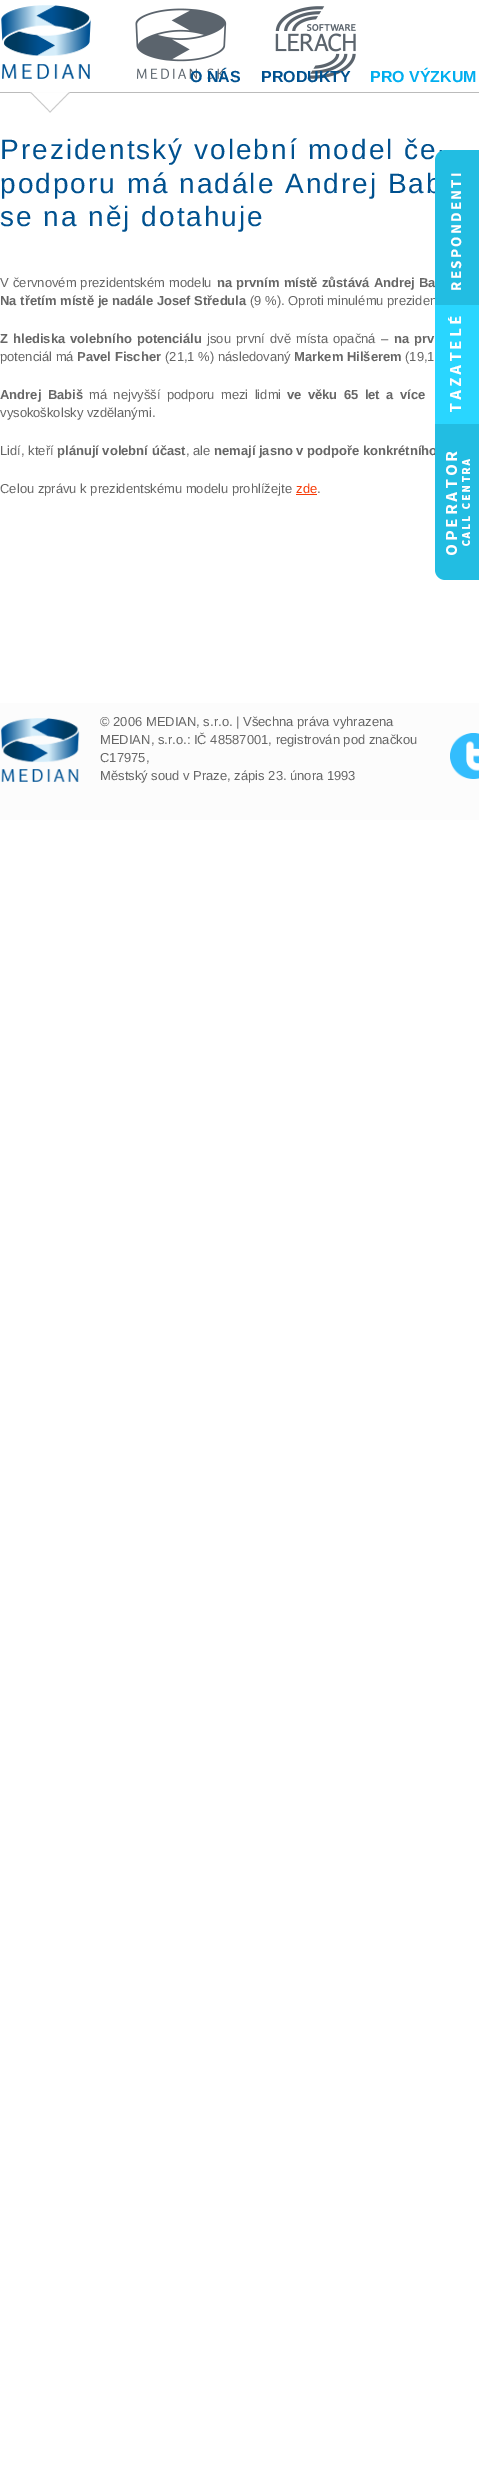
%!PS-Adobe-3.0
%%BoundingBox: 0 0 479 2485
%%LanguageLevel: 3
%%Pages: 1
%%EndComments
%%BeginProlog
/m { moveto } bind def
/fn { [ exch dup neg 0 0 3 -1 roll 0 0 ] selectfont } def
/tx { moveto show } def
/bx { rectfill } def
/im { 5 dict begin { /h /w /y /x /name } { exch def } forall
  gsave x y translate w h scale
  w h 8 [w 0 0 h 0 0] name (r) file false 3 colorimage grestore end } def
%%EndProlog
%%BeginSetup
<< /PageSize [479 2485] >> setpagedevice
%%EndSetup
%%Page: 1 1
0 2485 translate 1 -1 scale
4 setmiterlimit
1 setgray
0 0 479 2485 bx
0.733 setgray
0 92 479 1 bx
(image0.raw) 1 5 90 74 im
(image1.raw) 135 8 92 71 im
(image2.raw) 275 6 81 73 im
(image3.raw) 30 92 40 21 im
/LiberationSans-Bold 16 fn
0 0.318 0.561 setrgbcolor
(O NÁS) 190 82 tx
(PRODUKTY) 261 82 tx
0 0.682 0.937 setrgbcolor
(PRO VÝZKUM) 370 82 tx
/LiberationSans-Regular 28 fn
0 0.318 0.561 setrgbcolor
0 159 m 2 0 (Prezidentský volební model če) ashow
0 193 m 2 0 (podporu má nadále Andrej Bab) ashow
0 226 m 2 0 (se na něj dotahuje) ashow
/LiberationSans-Regular 13 fn
0.4 setgray
0 287 m 0.5 0 32 (V červnovém prezidentském modelu) widthshow
/LiberationSans-Bold 13 fn
217 287 m 0.5 0 32 (na prvním místě zůstává Andrej Ba) widthshow
(Na třetím místě je nadále Josef Středula) 0 305 tx
/LiberationSans-Regular 13 fn
(\(9 %\). Oproti minulému preziden) 250 305 tx
/LiberationSans-Bold 13 fn
0 343 m 1.5 0 32 (Z hlediska volebního potenciálu) widthshow
/LiberationSans-Regular 13 fn
207 343 m 1.5 0 32 (jsou první dvě místa opačná –) widthshow
/LiberationSans-Bold 13 fn
394 343 m 1.5 0 32 (na prv) widthshow
/LiberationSans-Regular 13 fn
(potenciál má) 0 361 tx
/LiberationSans-Bold 13 fn
(Pavel Fischer) 77 361 tx
/LiberationSans-Regular 13 fn
(\(21,1 %\) následovaný) 165 361 tx
/LiberationSans-Bold 13 fn
(Markem Hilšerem) 294 361 tx
/LiberationSans-Regular 13 fn
(\(19,1) 405 361 tx
/LiberationSans-Bold 13 fn
0 399 m 2.75 0 32 (Andrej Babiš) widthshow
/LiberationSans-Regular 13 fn
89 399 m 2.75 0 32 (má nejvyšší podporu mezi lidmi) widthshow
/LiberationSans-Bold 13 fn
287 399 m 2.75 0 32 (ve věku 65 let a více) widthshow
/LiberationSans-Regular 13 fn
(vysokoškolsky vzdělanými.) 0 417 tx
(Lidí, kteří) 0 455 tx
/LiberationSans-Bold 13 fn
(plánují volební účast) 57 455 tx
/LiberationSans-Regular 13 fn
(, ale) 186 455 tx
/LiberationSans-Bold 13 fn
(nemají jasno v podpoře konkrétního) 214 455 tx
/LiberationSans-Regular 13 fn
(Celou zprávu k prezidentskému modelu prohlížejte) 0 493 tx
0.969 0.231 0.027 setrgbcolor
(zde) 296 493 tx
296 494 21 1 bx
0.4 setgray
(.) 317 493 tx
(image4.raw) 435 150 44 155 im
(image5.raw) 435 305 44 119 im
(image6.raw) 435 424 44 156 im
0.988 setgray
0 703 479 117 bx
(image7.raw) 0 718 80 64 im
0.4 setgray
(© 2006 MEDIAN, s.r.o. | Všechna práva vyhrazena) 100 726 tx
(MEDIAN, s.r.o.: IČ 48587001, registrován pod značkou) 100 744 tx
(C17975,) 100 762 tx
(Městský soud v Praze, zápis 23. února 1993) 100 780 tx
(image8.raw) 450 733 29 46 im
showpage
%%EOF
